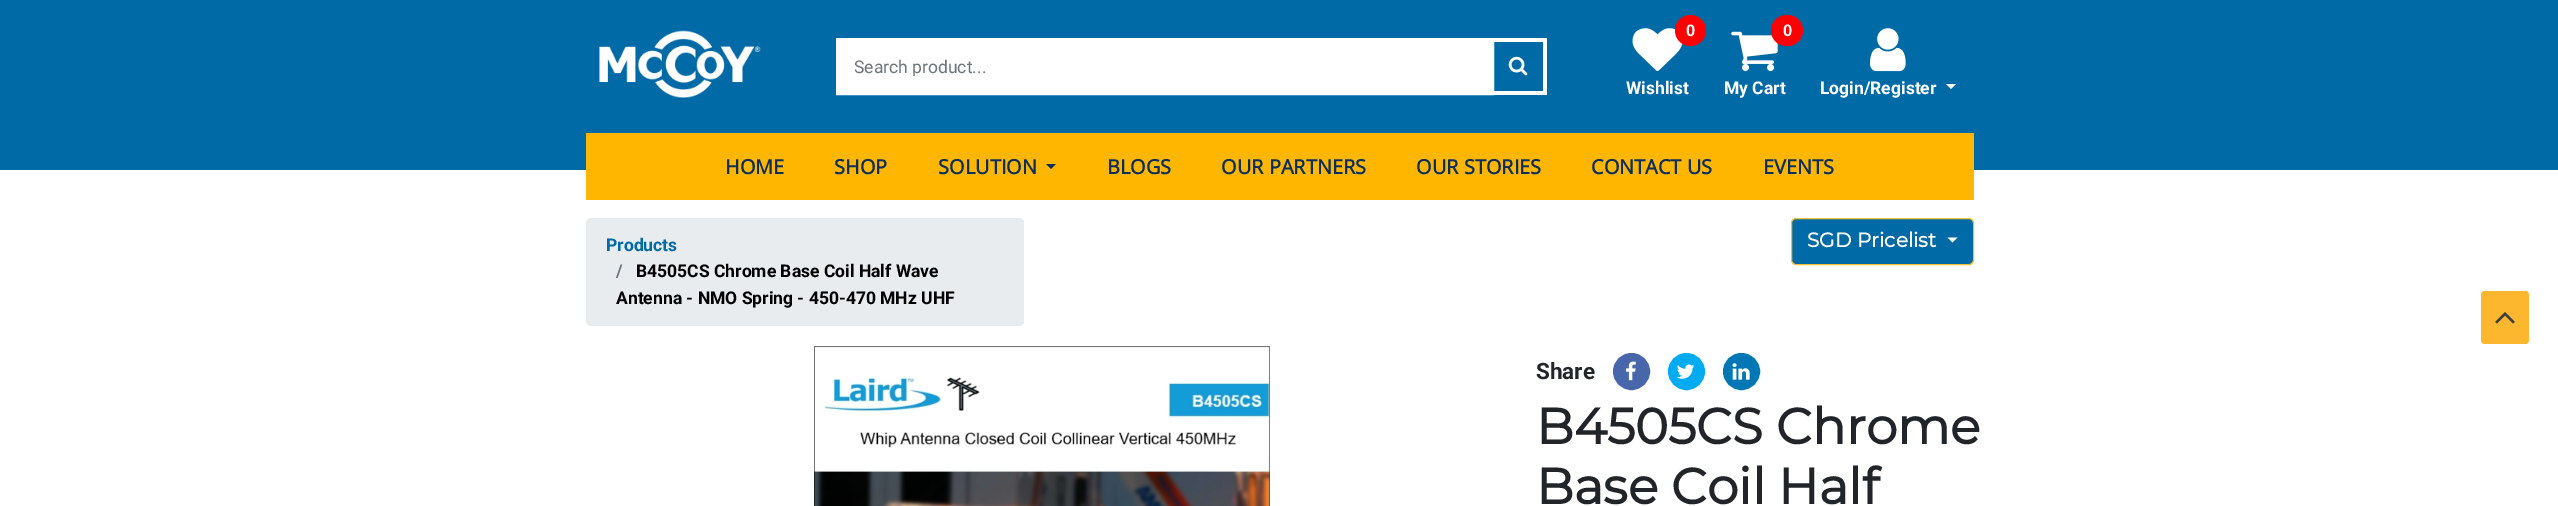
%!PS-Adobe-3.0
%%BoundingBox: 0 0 2558 506
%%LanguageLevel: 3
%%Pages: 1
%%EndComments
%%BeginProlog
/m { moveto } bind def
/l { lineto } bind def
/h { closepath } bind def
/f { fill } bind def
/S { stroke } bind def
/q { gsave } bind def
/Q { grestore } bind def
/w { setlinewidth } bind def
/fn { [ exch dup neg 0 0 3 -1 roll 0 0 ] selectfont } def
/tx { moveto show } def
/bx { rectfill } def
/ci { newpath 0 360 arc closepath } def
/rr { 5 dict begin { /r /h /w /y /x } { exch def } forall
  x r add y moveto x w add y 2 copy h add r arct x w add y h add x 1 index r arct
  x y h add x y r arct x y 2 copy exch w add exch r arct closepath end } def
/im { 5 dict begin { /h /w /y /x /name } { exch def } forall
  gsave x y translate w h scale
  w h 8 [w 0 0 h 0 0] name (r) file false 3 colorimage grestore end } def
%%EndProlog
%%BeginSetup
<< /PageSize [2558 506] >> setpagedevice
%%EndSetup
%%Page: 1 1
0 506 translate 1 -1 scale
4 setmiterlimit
1 setgray
0 0 2558 506 bx
0 0.416 0.655 setrgbcolor
0 0 2558 170 bx
(image0.raw) 599 30 162 68 im
1 setgray
838 40 m 1492 40 l 1492 93 l 838 93 l h q f Q
4 w
S
q
855 56 606 20 rectclip
/Roboto-Regular 17.5 fn
0.424 0.459 0.49 setrgbcolor
(Search product...) 854 73 tx
Q
1494 38 52 4 bx
1543 38 4 57 bx
1494 91 52 4 bx
(image1.raw) 1508 56 20 20 im
(image2.raw) 1632 28 51 44 im
1 0 0 setrgbcolor
1690.5 30.5 15.5 ci f
/Roboto-Bold 16 fn
1 setgray
(0) 1686 36 tx
/Roboto-Bold 17.5 fn
(Wishlist) 1626 94 tx
(image3.raw) 1731 31 47 41 im
1 0 0 setrgbcolor
1771 15 32 31 15.5 rr f
/Roboto-Bold 16 fn
1 setgray
(0) 1783 36 tx
/Roboto-Bold 17.5 fn
(My Cart) 1724 94 tx
(image4.raw) 1870 28 36 44 im
(Login/Register) 1820 94 tx
1946 84 m 1956 84 l 1951 89 l h f
1 0.714 0 setrgbcolor
586 133 1388 67 bx
/OpenSans-Bold 20 fn
0.047 0.18 0.353 setrgbcolor
(HOME) 725 174 tx
(SHOP) 834 174 tx
(SOLUTION) 938 174 tx
1046 164 m 1056 164 l 1051 169 l h f
(BLOGS) 1107 174 tx
(OUR PARTNERS) 1221 174 tx
(OUR STORIES) 1416 174 tx
(CONTACT US) 1591 174 tx
(EVENTS) 1763 174 tx
0.914 0.925 0.937 setrgbcolor
586 218 438 108 5 rr f
/Roboto-Bold 17.5 fn
0 0.416 0.651 setrgbcolor
(Products) 606 251 tx
0.424 0.459 0.49 setrgbcolor
(/) 616 277 tx
0 setgray
(B4505CS Chrome Base Coil Half Wave) 636 277 tx
(Antenna - NMO Spring - 450-470 MHz UHF) 616 304 tx
0 0.416 0.651 setrgbcolor
1791.5 218.5 182 46 4.5 rr q f Q
0.941 0.757 0.188 setrgbcolor
1 w
S
/Montserrat-Bold 20 fn
1 setgray
(SGD Pricelist) 1807 247 tx
1947.5 237.5 m 1957.5 237.5 l 1952.5 242.5 l h f
(image5.raw) 814 346 456 160 im
/Roboto-Bold 22.5 fn
0.129 0.145 0.161 setrgbcolor
(Share) 1536 379 tx
0.282 0.404 0.667 setrgbcolor
1631.5 371.5 17 ci q f Q
3 w
S
(image6.raw) 1626 361 10 20 im
0 0.671 0.945 setrgbcolor
1686.5 371.5 17 ci q f Q
S
(image7.raw) 1677 364 18 15 im
0 0.467 0.71 setrgbcolor
1741.5 371.5 17 ci q f Q
S
(image8.raw) 1732 363 18 17 im
/Montserrat-Bold 50 fn
0.129 0.145 0.161 setrgbcolor
(B4505CS Chrome) 1536 444 tx
(Base Coil Half) 1536 504 tx
0.992 0.718 0.184 setrgbcolor
2481 291 48 53 4 rr f
(image9.raw) 2495 312 20 12 im
showpage
%%EOF
